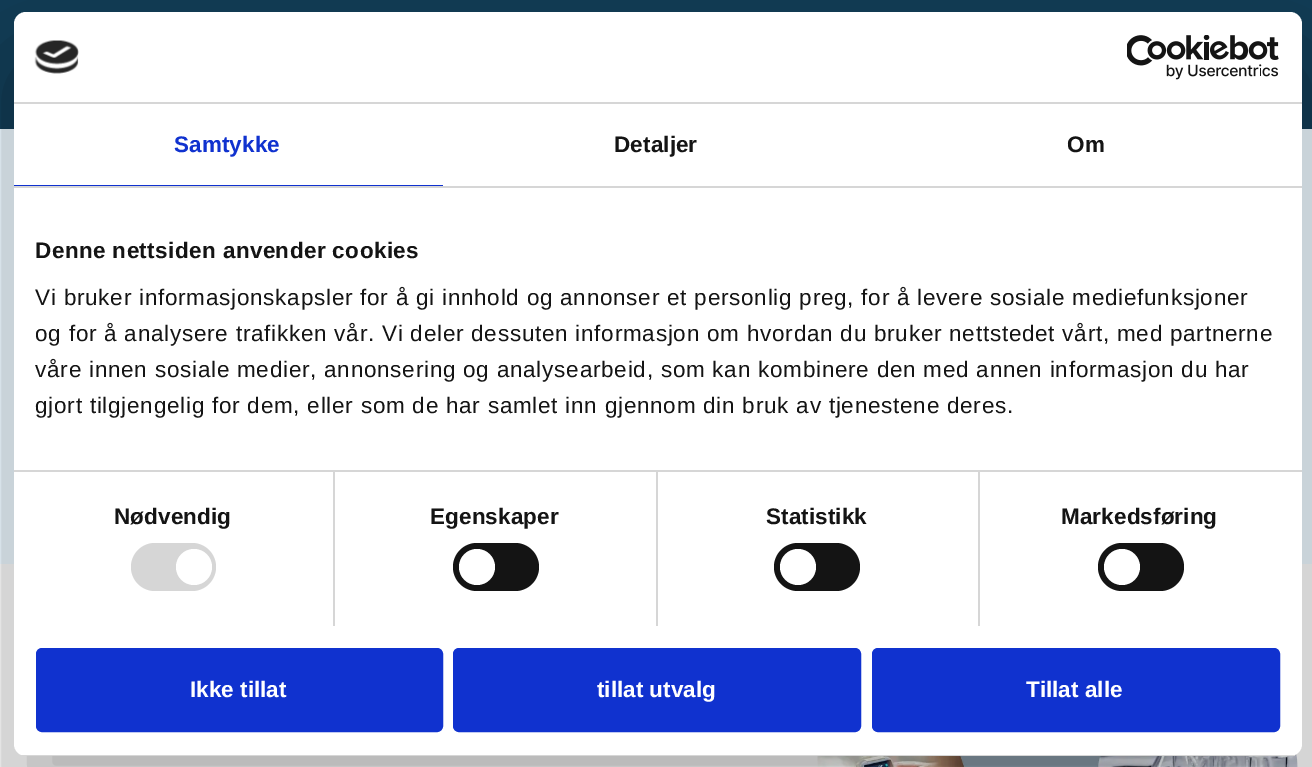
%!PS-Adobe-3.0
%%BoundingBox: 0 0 1312 767
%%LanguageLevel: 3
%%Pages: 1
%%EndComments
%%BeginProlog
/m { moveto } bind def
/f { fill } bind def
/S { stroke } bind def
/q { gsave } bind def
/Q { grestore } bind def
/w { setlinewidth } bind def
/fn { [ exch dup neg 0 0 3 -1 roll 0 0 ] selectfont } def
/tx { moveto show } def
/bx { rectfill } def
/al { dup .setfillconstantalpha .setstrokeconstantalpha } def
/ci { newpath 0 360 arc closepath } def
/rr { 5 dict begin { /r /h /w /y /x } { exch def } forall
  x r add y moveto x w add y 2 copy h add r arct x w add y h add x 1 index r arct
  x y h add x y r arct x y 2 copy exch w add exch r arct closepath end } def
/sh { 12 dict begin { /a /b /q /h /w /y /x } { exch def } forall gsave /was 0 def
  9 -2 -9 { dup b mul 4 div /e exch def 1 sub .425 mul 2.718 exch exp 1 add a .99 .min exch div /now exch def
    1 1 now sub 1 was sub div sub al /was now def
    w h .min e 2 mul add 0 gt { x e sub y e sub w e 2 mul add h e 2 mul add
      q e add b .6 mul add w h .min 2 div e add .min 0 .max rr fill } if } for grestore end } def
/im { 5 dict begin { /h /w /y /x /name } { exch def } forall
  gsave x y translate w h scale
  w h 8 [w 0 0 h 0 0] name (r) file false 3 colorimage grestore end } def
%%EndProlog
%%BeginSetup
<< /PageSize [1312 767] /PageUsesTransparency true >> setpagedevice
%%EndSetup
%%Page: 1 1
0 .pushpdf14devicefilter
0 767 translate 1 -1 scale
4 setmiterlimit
0.98 setgray
0 0 1312 767 bx
0.067 0.235 0.337 setrgbcolor
0 0 1312 129 bx
0.925 0.973 1 setrgbcolor
0 129 1312 435 bx
(image0.raw) 817 753 481 14 im
0 setgray
14 60 1288 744 12 51 0.3 sh
1 setgray
14 12 1288 744 12 rr f
0.839 setgray
14 102 1288 2 bx
(image1.raw) 34 40 45 34 im
(image2.raw) 1127 35 152 45 im
14 186 1288 2 bx
0.063 0.196 0.812 setrgbcolor
14 185 429 1 bx
/LiberationSans-Bold 22.5 fn
174 152 m 0.1 0 (Samtykke) ashow
0.078 setgray
614 152 m 0.1 0 (Detaljer) ashow
1067 152 m 0.1 0 (Om) ashow
0.839 setgray
333 471 2 155 bx
656 471 2 155 bx
978 471 2 155 bx
14 470 1288 2 bx
0.078 setgray
35 258 m 0.4 0 (Denne nettsiden anvender cookies) ashow
/LiberationSans-Regular 22.5 fn
35 305 m 0.75 0 (Vi bruker informasjonskapsler for å gi innhold og annonser et personlig preg, for å levere sosiale mediefunksjoner) ashow
35 341 m 0.75 0 (og for å analysere trafikken vår. Vi deler dessuten informasjon om hvordan du bruker nettstedet vårt, med partnerne) ashow
35 377 m 0.75 0 (våre innen sosiale medier, annonsering og analysearbeid, som kan kombinere den med annen informasjon du har) ashow
35 413 m 0.75 0 (gjort tilgjengelig for dem, eller som de har samlet inn gjennom din bruk av tjenestene deres.) ashow
/LiberationSans-Bold 22.5 fn
114 524 m 0.1 0 (Nødvendig) ashow
0.839 setgray
131 543 85 48 24 rr f
1 setgray
194 567 18 ci f
0.078 setgray
430 524 m 0.1 0 (Egenskaper) ashow
453 543 86 48 24 rr f
1 setgray
477 567 18 ci f
0.078 setgray
766 524 m 0.1 0 (Statistikk) ashow
774 543 86 48 24 rr f
1 setgray
798 567 18 ci f
0.078 setgray
1061 524 m 0.1 0 (Markedsføring) ashow
1098 543 86 48 24 rr f
1 setgray
1122 567 18 ci f
q
14 12 1288 744 12 rr clip newpath
0.839 setgray
14 755 1288 1 bx
Q
0.063 0.196 0.812 setrgbcolor
37.5 649.5 404 81 4.5 rr q f Q
3 w
S
1 setgray
(Ikke tillat) 190 697 tx
0.063 0.196 0.812 setrgbcolor
454.5 649.5 405 81 4.5 rr q f Q
S
1 setgray
(tillat utvalg) 597 697 tx
0.063 0.196 0.812 setrgbcolor
873.5 649.5 405 81 4.5 rr q f Q
S
1 setgray
(Tillat alle) 1026 697 tx
.poppdf14devicefilter showpage
%%EOF
